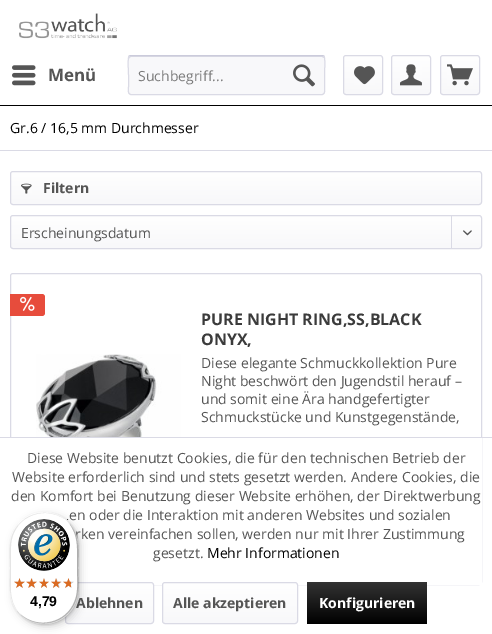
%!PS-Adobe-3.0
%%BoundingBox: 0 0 492 634
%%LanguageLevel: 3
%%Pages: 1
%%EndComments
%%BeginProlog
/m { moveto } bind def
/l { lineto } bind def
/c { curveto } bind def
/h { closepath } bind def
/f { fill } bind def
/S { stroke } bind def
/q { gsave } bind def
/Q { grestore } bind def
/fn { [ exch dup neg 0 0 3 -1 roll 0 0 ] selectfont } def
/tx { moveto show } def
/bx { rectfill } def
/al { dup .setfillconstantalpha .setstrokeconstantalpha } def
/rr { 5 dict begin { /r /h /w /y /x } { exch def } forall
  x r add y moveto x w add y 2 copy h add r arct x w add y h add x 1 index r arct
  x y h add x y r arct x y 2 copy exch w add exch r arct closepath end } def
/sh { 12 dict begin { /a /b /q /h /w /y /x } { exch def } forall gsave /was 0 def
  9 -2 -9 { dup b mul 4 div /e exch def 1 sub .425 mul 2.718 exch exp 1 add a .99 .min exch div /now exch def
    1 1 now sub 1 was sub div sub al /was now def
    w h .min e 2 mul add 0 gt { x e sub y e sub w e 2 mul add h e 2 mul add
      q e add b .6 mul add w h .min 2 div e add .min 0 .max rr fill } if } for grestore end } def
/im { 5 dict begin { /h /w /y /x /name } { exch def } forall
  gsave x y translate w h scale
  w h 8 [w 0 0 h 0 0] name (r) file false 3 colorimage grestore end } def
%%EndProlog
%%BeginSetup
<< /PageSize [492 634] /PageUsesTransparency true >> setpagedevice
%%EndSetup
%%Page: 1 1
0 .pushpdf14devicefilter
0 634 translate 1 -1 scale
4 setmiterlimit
1 setgray
0 0 492 634 bx
0 setgray
0 105 492 1 bx
(image0.raw) 19 13 98 26 im
(image1.raw) 12 65 24 21 im
/OpenSans-Bold 17 fn
0.333 setgray
(Menü) 48 81 tx
0.973 0.973 0.98 setrgbcolor
128 55 197 40 3 rr f
0.855 0.855 0.898 setrgbcolor
131 57 m 322 57 l 324 58 l 324 59 l 324 58 l 324 57 323 56 322 56 c 131 56 l 130 56 129 57 129 58 c 129 59 l 129 58 130 57 131 57 c h f
0.796 0.796 0.859 setrgbcolor
129 56 m 131 55.5 l 322 55.5 l 324 56 l S
0.855 0.855 0.898 setrgbcolor
324 56 m 325.5 58 324.5 72 324.5 75 c 324.5 86.5 l 324.5 88 326 94.5 322 94.5 c 131 94.5 l 127 94.5 128.5 88 128.5 86.5 c 128.5 75 l 128.5 72 127.5 58 129 56 c S
/OpenSans-Regular 14 fn
0.482 setgray
(Suchbegriff...) 138 81 tx
(image2.raw) 293 64 22 23 im
q 344 56 38 38 2 rr clip newpath
<< /ShadingType 2 /ColorSpace /DeviceRGB /Coords [363 56 363 94] /Extend [true true] /Function << /FunctionType 2 /Domain [0 1] /C0 [1 1 1] /C1 [0.973 0.973 0.98] /N 1 >> >> shfill Q
0.855 0.855 0.898 setrgbcolor
343.5 55.5 39 39 2.5 rr S
(image3.raw) 354 66 21 19 im
q 392 56 38 38 2 rr clip newpath
<< /ShadingType 2 /ColorSpace /DeviceRGB /Coords [411 56 411 94] /Extend [true true] /Function << /FunctionType 2 /Domain [0 1] /C0 [1 1 1] /C1 [0.973 0.973 0.98] /N 1 >> >> shfill Q
391.5 55.5 39 39 2.5 rr S
(image4.raw) 400 64 22 22 im
q 441 56 38 38 2 rr clip newpath
<< /ShadingType 2 /ColorSpace /DeviceRGB /Coords [460 56 460 94] /Extend [true true] /Function << /FunctionType 2 /Domain [0 1] /C0 [1 1 1] /C1 [0.973 0.973 0.98] /N 1 >> >> shfill Q
440.5 55.5 39 39 2.5 rr S
(image5.raw) 447 64 26 22 im
0 150 492 1 bx
0 setgray
(Gr.6 / 16,5 mm Durchmesser) 10 133 tx
q 11 172 470 32 2 rr clip newpath
<< /ShadingType 2 /ColorSpace /DeviceRGB /Coords [246 172 246 204] /Extend [true true] /Function << /FunctionType 2 /Domain [0 1] /C0 [1 1 1] /C1 [0.973 0.973 0.98] /N 1 >> >> shfill Q
0.855 0.855 0.898 setrgbcolor
10.5 171.5 471 33 2.5 rr S
(image6.raw) 21 183 11 11 im
/OpenSans-Bold 14 fn
0.333 setgray
(Filtern) 43 193 tx
q 11 216 470 32 2 rr clip newpath
<< /ShadingType 2 /ColorSpace /DeviceRGB /Coords [246 216 246 248] /Extend [true true] /Function << /FunctionType 2 /Domain [0 1] /C0 [1 1 1] /C1 [0.973 0.973 0.98] /N 1 >> >> shfill Q
0.855 0.855 0.898 setrgbcolor
10.5 215.5 471 33 2.5 rr S
/OpenSans-Regular 14 fn
0.333 setgray
(Erscheinungsdatum) 21 238 tx
0.855 0.855 0.898 setrgbcolor
451 216 1 33 bx
(image7.raw) 463 230 9 6 im
10.5 273.5 471 311 2.5 rr S
0.906 0.298 0.235 setrgbcolor
10 294 m 42 294 l 43.5 294 45 295.5 45 297 c 45 313 l 45 314.5 43.5 316 42 316 c 10 316 l h f
(image8.raw) 20 296 15 15 im
/OpenSans-Bold 16 fn
0.231 setgray
(PURE NIGHT RING,SS,BLACK) 201 325 tx
(ONYX,) 201 345 tx
(image9.raw) 36 354 145 83 im
/OpenSans-Regular 14 fn
0.333 setgray
(Diese elegante Schmuckkollektion Pure) 201 368 tx
(Night beschwört den Jugendstil herauf –) 201 386 tx
(und somit eine Ära handgefertigter) 201 404 tx
(Schmuckstücke und Kunstgegenstände,) 201 422 tx
1 setgray
10 438 472 147 bx
0.855 0.855 0.898 setrgbcolor
0 437 492 1 bx
0.333 setgray
(Diese Website benutzt Cookies, die für den technischen Betrieb der) 27 463 tx
(Website erforderlich sind und stets gesetzt werden. Andere Cookies, die) 12 482 tx
(den Komfort bei Benutzung dieser Website erhöhen, der Direktwerbung) 11 501 tx
(en oder die Interaktion mit anderen Websites und sozialen) 69 520 tx
(rken vereinfachen sollen, werden nur mit Ihrer Zustimmung) 75 539 tx
(gesetzt.) 153 558 tx
0 setgray
(Mehr Informationen) 207 558 tx
q 66 583 87 40 2 rr clip newpath
<< /ShadingType 2 /ColorSpace /DeviceRGB /Coords [110 583 110 623] /Extend [true true] /Function << /FunctionType 2 /Domain [0 1] /C0 [1 1 1] /C1 [0.973 0.973 0.98] /N 1 >> >> shfill Q
0.855 0.855 0.898 setrgbcolor
65.5 582.5 88 41 2.5 rr S
/OpenSans-Bold 14 fn
0.333 setgray
(Ablehnen) 76 608 tx
q 163 583 134 40 2 rr clip newpath
<< /ShadingType 2 /ColorSpace /DeviceRGB /Coords [230 583 230 623] /Extend [true true] /Function << /FunctionType 2 /Domain [0 1] /C0 [1 1 1] /C1 [0.973 0.973 0.98] /N 1 >> >> shfill Q
0.855 0.855 0.898 setrgbcolor
162.5 582.5 135 41 2.5 rr S
0.333 setgray
(Alle akzeptieren) 173 608 tx
q 307 582 120 42 3 rr clip newpath
<< /ShadingType 2 /ColorSpace /DeviceRGB /Coords [367 582 367 624] /Extend [true true] /Function << /FunctionType 2 /Domain [0 1] /C0 [0.2 0.2 0.2] /C1 [0 0 0] /N 1 >> >> shfill Q
1 setgray
(Konfigurieren) 319 608 tx
0 setgray
13 515 68 112 34 4 0.15 sh
11 513 68 112 34 1 0.15 sh
1 setgray
10 512 68 112 34 rr f
0.898 setgray
45 513 m 53 513 61 516 67 521 c 50 506 22 512 13 533 c 8 543 10 557 10 568 c 10 583 7 600 19 613 c 14 607 11 599 11 591 c 11 547 l 11 528 26 513 45 513 c h f
0.2 al
0 setgray
21 615 m 38 630 66 624 75 603 c 80 593 78 579 78 568 c 78 553 81 536 69 523 c 79 536 77 552 77 567 c 77 578 79 592 74 602 c 66 623 38 629 21 615 c h f
0.196 setgray
17 611 m 24 619 33 624 44 624 c 63 624 78 609 78 590 c 78 546 l 78 535 73 526 65 519 c 72 526 77 535 77 545 c 77 589 l 77 608 62 623 43 623 c 33 623 24 618 17 611 c h f
0.3 al
1 setgray
44 512 m 63 512 78 527 78 546 c 78 527 62 512 44 512 c h 78 590 m 78 608 62 624 44 624 c 63 624 78 609 78 590 c h 44 624 m 25 624 10 608 10 590 c 10 609 25 624 44 624 c h eofill
1 al
(image10.raw) 18 519 52 52 im
(image11.raw) 14 578 11 10 im
(image12.raw) 27 578 10 10 im
(image13.raw) 39 578 10 10 im
(image14.raw) 51 578 11 10 im
(image14.raw) 63 578 11 10 im
(image15.raw) 14 578 11 10 im
(image16.raw) 26 578 11 10 im
(image17.raw) 39 578 10 10 im
(image18.raw) 51 578 10 10 im
(image19.raw) 63 578 8 10 im
/LiberationSans-Bold 14 fn
0 setgray
(4,79) 30 606 tx
.poppdf14devicefilter showpage
%%EOF
